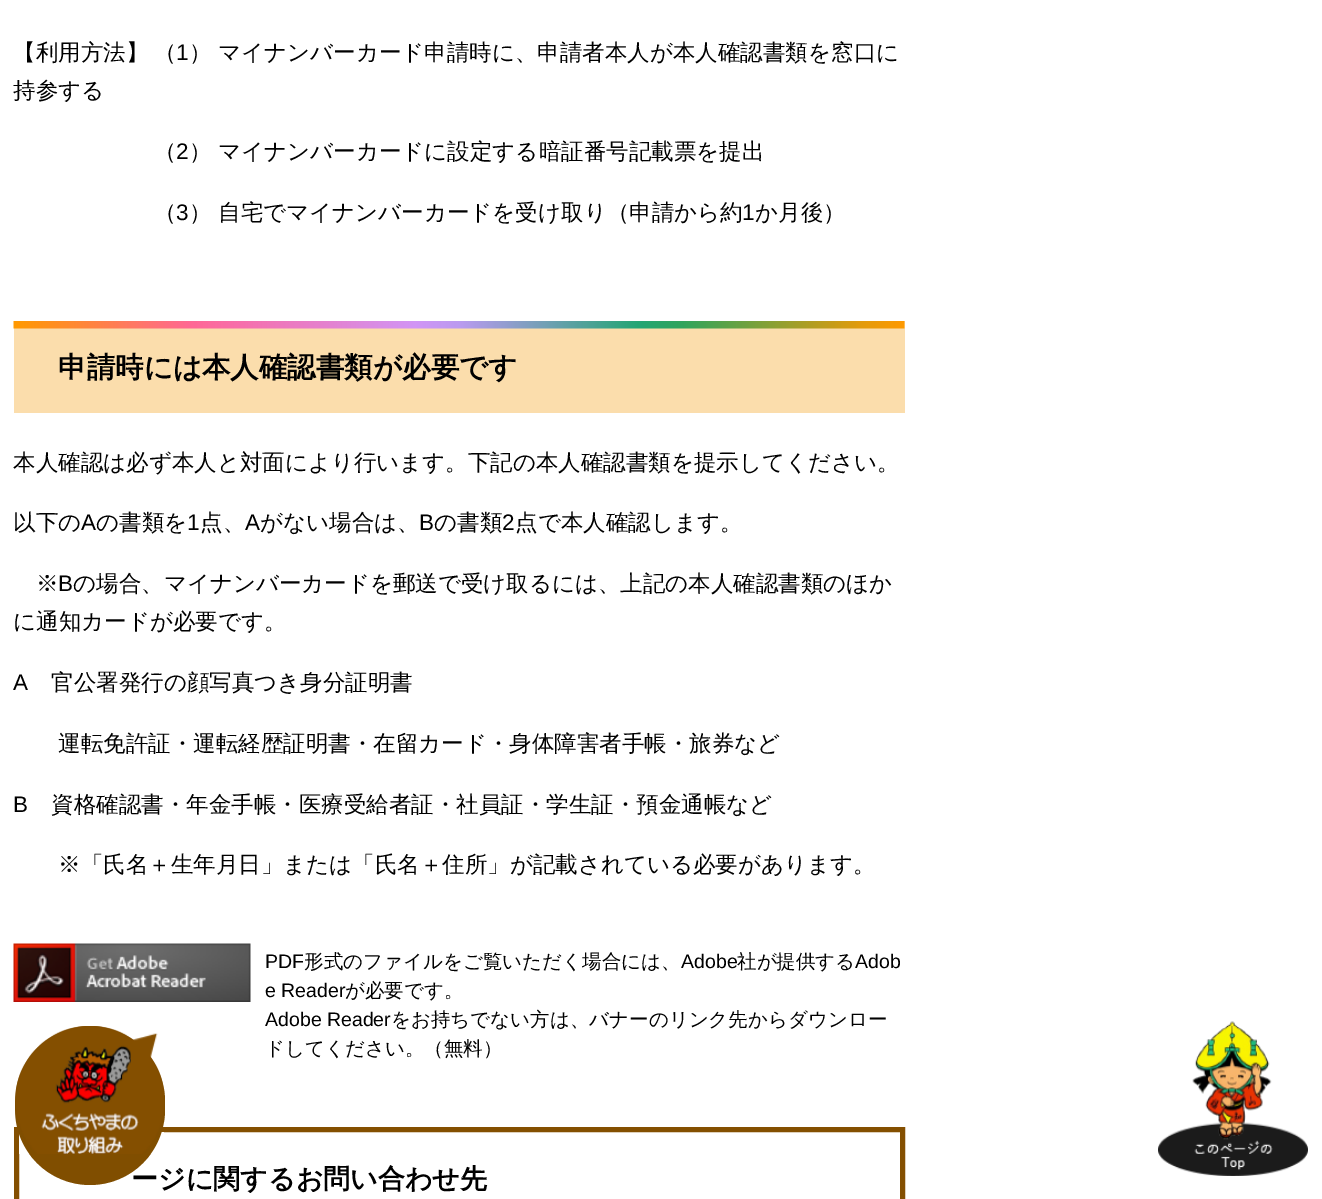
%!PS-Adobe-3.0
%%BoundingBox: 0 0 1322 1199
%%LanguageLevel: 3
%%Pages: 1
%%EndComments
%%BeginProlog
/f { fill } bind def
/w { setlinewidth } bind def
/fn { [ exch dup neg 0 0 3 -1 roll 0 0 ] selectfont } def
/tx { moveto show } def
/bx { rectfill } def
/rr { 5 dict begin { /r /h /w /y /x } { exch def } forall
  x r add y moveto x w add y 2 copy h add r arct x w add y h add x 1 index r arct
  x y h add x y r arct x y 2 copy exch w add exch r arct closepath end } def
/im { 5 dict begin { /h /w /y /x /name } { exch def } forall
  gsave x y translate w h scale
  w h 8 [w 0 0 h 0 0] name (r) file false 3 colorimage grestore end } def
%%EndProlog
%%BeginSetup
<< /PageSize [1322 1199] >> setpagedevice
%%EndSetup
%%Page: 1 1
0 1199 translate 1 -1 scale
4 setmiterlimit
1 setgray
0 0 1322 1199 bx
/WenQuanYiZenHei-Medium 22.5 fn
0 setgray
(【利用方法】) 13 60 tx
(（) 154 60 tx
/LiberationSans-Regular 22.5 fn
(1) 176 60 tx
/WenQuanYiZenHei-Medium 22.5 fn
(） マイナンバーカード申請時に、申請者本人が本人確認書類を窓口に) 189 60 tx
(持参する) 13 98 tx
(（) 154 159 tx
/LiberationSans-Regular 22.5 fn
(2) 176 159 tx
/WenQuanYiZenHei-Medium 22.5 fn
(） マイナンバーカードに設定する暗証番号記載票を提出) 189 159 tx
(（) 154 220 tx
/LiberationSans-Regular 22.5 fn
(3) 176 220 tx
/WenQuanYiZenHei-Medium 22.5 fn
(） 自宅でマイナンバーカードを受け取り（申請から約) 189 220 tx
/LiberationSans-Regular 22.5 fn
(1) 742 220 tx
/WenQuanYiZenHei-Medium 22.5 fn
(か月後）) 755 220 tx
0.984 0.867 0.675 setrgbcolor
14 321 891 92 bx
(image0.raw) 13 321 892 8 im
/WenQuanYiZenHei-Bold 28.5 fn
0 setgray
(申請時には本人確認書類が必要です) 58 377 tx
/WenQuanYiZenHei-Medium 22.5 fn
(本人確認は必ず本人と対面により行います。下記の本人確認書類を提示してください。) 13 470 tx
(以下の) 13 530 tx
/LiberationSans-Regular 22.5 fn
(A) 81 530 tx
/WenQuanYiZenHei-Medium 22.5 fn
(の書類を) 96 530 tx
/LiberationSans-Regular 22.5 fn
(1) 187 530 tx
/WenQuanYiZenHei-Medium 22.5 fn
(点、) 200 530 tx
/LiberationSans-Regular 22.5 fn
(A) 245 530 tx
/WenQuanYiZenHei-Medium 22.5 fn
(がない場合は、) 260 530 tx
/LiberationSans-Regular 22.5 fn
(B) 419 530 tx
/WenQuanYiZenHei-Medium 22.5 fn
(の書類) 434 530 tx
/LiberationSans-Regular 22.5 fn
(2) 502 530 tx
/WenQuanYiZenHei-Medium 22.5 fn
(点で本人確認します。) 515 530 tx
(※) 36 591 tx
/LiberationSans-Regular 22.5 fn
(B) 58 591 tx
/WenQuanYiZenHei-Medium 22.5 fn
(の場合、マイナンバーカードを郵送で受け取るには、上記の本人確認書類のほか) 73 591 tx
(に通知カードが必要です。) 13 629 tx
/LiberationSans-Regular 22.5 fn
(A) 13 690 tx
/WenQuanYiZenHei-Medium 22.5 fn
(官公署発行の顔写真つき身分証明書) 51 690 tx
(運転免許証・運転経歴証明書・在留カード・身体障害者手帳・旅券など) 58 751 tx
/LiberationSans-Regular 22.5 fn
(B) 13 812 tx
/WenQuanYiZenHei-Medium 22.5 fn
(資格確認書・年金手帳・医療受給者証・社員証・学生証・預金通帳など) 51 812 tx
(※「氏名＋生年月日」または「氏名＋住所」が記載されている必要があります。) 58 872 tx
(image1.raw) 13 943 238 59 im
/LiberationSans-Regular 19.5 fn
(PDF) 265 968 tx
/WenQuanYiZenHei-Medium 19.5 fn
(形式のファイルをご覧いただく場合には、) 304 968 tx
/LiberationSans-Regular 19.5 fn
(Adobe) 681 968 tx
/WenQuanYiZenHei-Medium 19.5 fn
(社が提供する) 737 968 tx
/LiberationSans-Regular 19.5 fn
(Adob) 855 968 tx
(e Reader) 265 997 tx
/WenQuanYiZenHei-Medium 19.5 fn
(が必要です。) 345 997 tx
/LiberationSans-Regular 19.5 fn
(Adobe Reader) 265 1026 tx
/WenQuanYiZenHei-Medium 19.5 fn
(をお持ちでない方は、バナーのリンク先からダウンロー) 391 1026 tx
(ドしてください。（無料）) 265 1055 tx
0.518 0.31 0 setrgbcolor
5 w
16.5 1129.5 886 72 rectstroke
/WenQuanYiZenHei-Bold 27 fn
0 setgray
(ージに関するお問い合わせ先) 131 1188 tx
0.502 0.306 0 setrgbcolor
15 1026 150 159 75 rr f
(image2.raw) 15 1026 149 128 im
(image3.raw) 1158 1021 150 155 im
showpage
%%EOF
